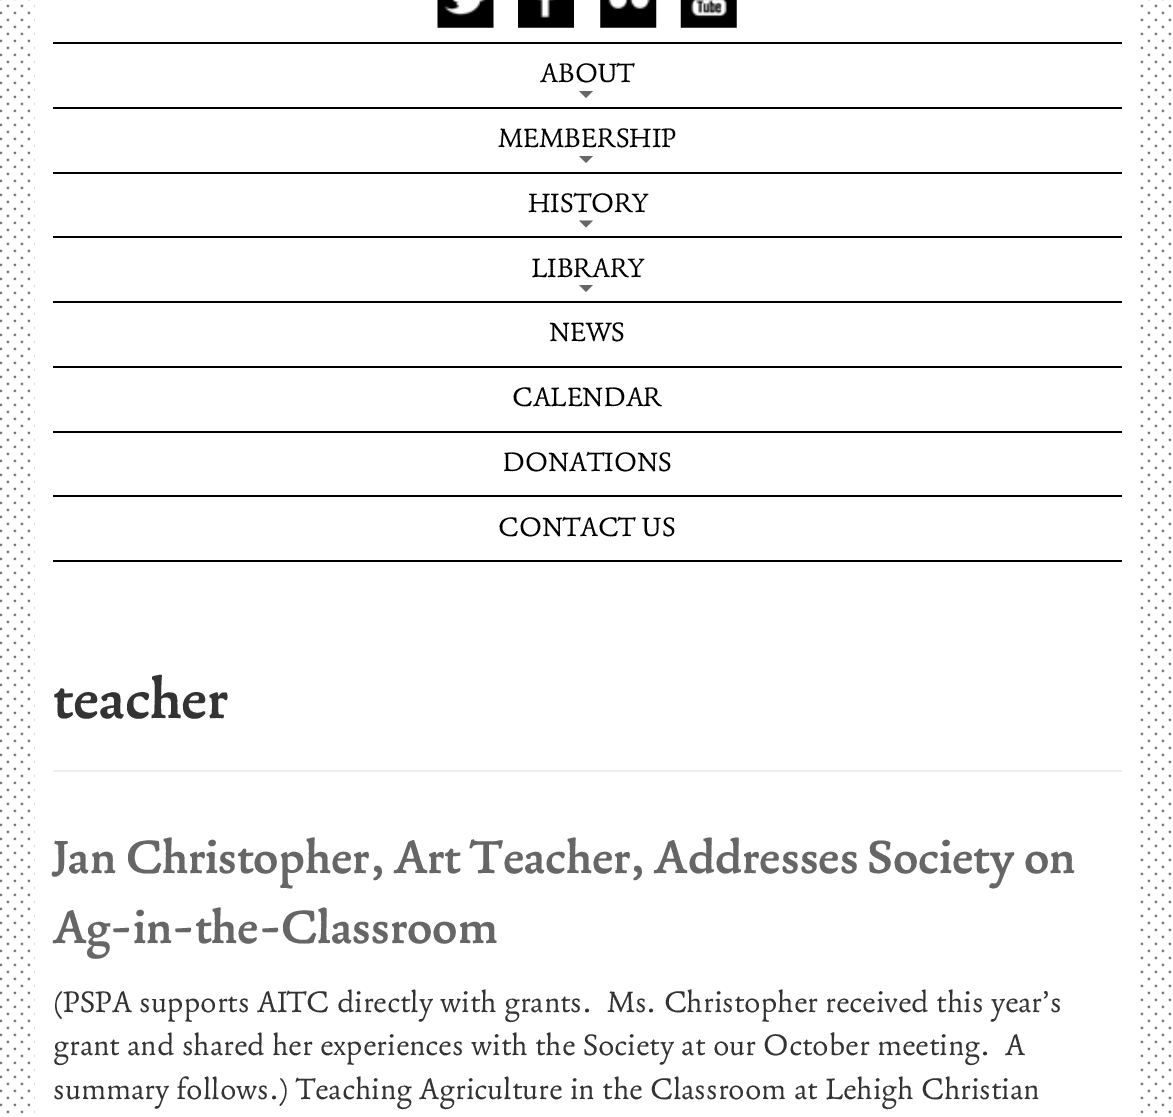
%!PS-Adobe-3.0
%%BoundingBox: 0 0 1173 1117
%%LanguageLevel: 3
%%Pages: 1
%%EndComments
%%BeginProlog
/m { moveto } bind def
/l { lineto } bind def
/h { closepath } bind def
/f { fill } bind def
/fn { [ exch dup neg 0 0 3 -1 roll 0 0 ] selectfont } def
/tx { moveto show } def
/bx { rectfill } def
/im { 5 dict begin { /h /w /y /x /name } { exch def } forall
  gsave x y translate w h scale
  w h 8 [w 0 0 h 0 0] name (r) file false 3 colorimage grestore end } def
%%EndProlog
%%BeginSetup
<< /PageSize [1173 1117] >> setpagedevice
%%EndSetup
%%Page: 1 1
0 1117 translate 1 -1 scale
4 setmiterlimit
1 setgray
0 0 1173 1117 bx
(image0.raw) 0 0 1172 1114 im
35 0 1102 596 bx
(image1.raw) 437 0 57 28 im
(image2.raw) 518 0 56 28 im
(image3.raw) 600 0 57 28 im
(image4.raw) 680 0 57 28 im
0 setgray
53 42 1069 2 bx
53 107 1069 2 bx
/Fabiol-Regular 31.5 fn
(ABOUT) 540 82 tx
0.4 setgray
579 91 m 593 91 l 586 98 l h f
0 setgray
53 172 1069 2 bx
(MEMBERSHIP) 498 147 tx
0.4 setgray
579 156 m 593 156 l 586 163 l h f
0 setgray
53 236 1069 2 bx
(HISTORY) 528 212 tx
0.4 setgray
579 220.5 m 593 220.5 l 586 227.5 l h f
0 setgray
(LIBRARY) 531 277 tx
0.4 setgray
579 285 m 593 285 l 586 292 l h f
0 setgray
53 301 1069 2 bx
53 366 1069 2 bx
(NEWS) 549 341 tx
53 431 1069 2 bx
(CALENDAR) 512 406 tx
53 495 1069 2 bx
(DONATIONS) 503 471 tx
53 560 1069 2 bx
(CONTACT US) 498 536 tx
1 setgray
35 599 1102 515 bx
0.933 setgray
53 770 1069 2 bx
/Fabiol-Bold 67 fn
0.2 setgray
(teacher) 53 718 tx
/Fabiol-Bold 55.1 fn
0.4 setgray
(Jan Christopher, Art Teacher, Addresses Society on) 53 873 tx
(Ag-in-the-Classroom) 53 943 tx
/Fabiol-Regular 35 fn
0.2 setgray
(\(PSPA supports AITC directly with grants.  Ms. Christopher received this year’s) 53 1012 tx
(grant and shared her experiences with the Society at our October meeting.  A) 53 1055 tx
(summary follows.\) Teaching Agriculture in the Classroom at Lehigh Christian) 53 1099 tx
showpage
%%EOF
